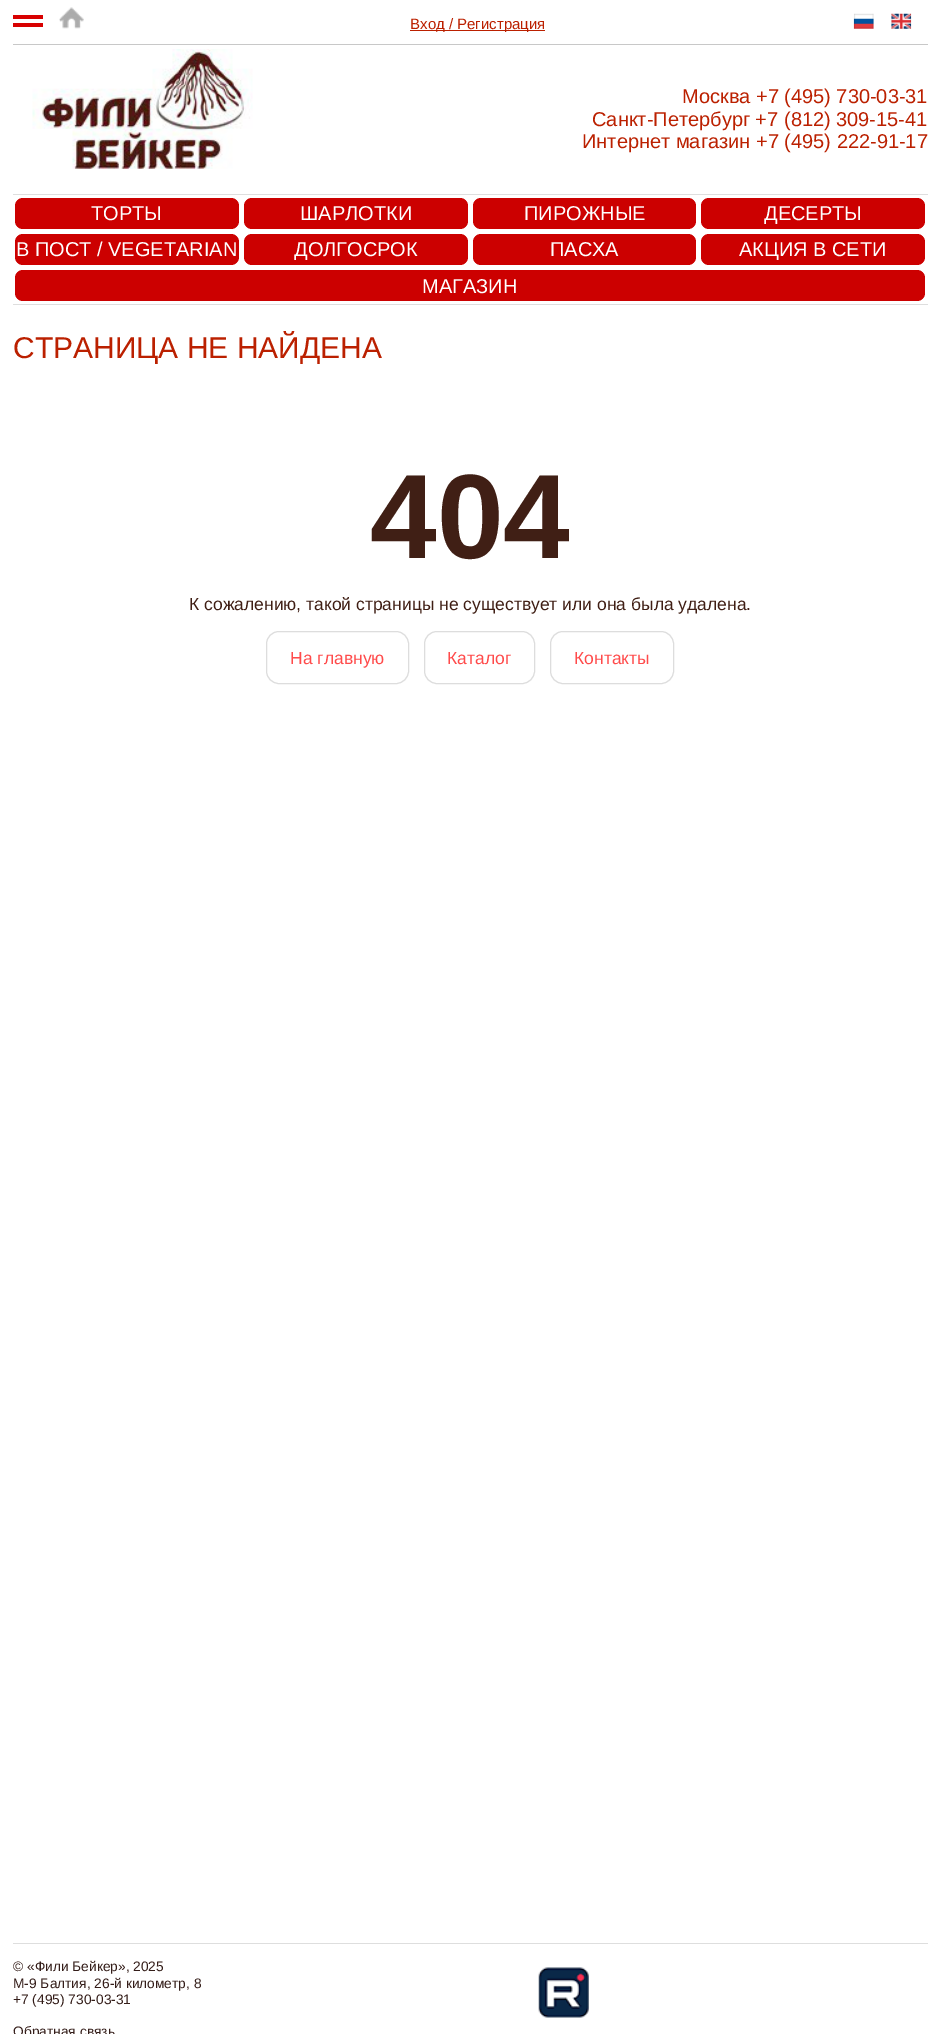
%!PS-Adobe-3.0
%%BoundingBox: 0 0 939 2034
%%LanguageLevel: 3
%%Pages: 1
%%EndComments
%%BeginProlog
/f { fill } bind def
/S { stroke } bind def
/fn { [ exch dup neg 0 0 3 -1 roll 0 0 ] selectfont } def
/tx { moveto show } def
/bx { rectfill } def
/rr { 5 dict begin { /r /h /w /y /x } { exch def } forall
  x r add y moveto x w add y 2 copy h add r arct x w add y h add x 1 index r arct
  x y h add x y r arct x y 2 copy exch w add exch r arct closepath end } def
/im { 5 dict begin { /h /w /y /x /name } { exch def } forall
  gsave x y translate w h scale
  w h 8 [w 0 0 h 0 0] name (r) file false 3 colorimage grestore end } def
%%EndProlog
%%BeginSetup
<< /PageSize [939 2034] >> setpagedevice
%%EndSetup
%%Page: 1 1
0 2034 translate 1 -1 scale
4 setmiterlimit
1 setgray
0 0 939 2034 bx
0.784 setgray
13 44 915 1 bx
0.847 0 0 setrgbcolor
13 15 30 4 bx
13 23 30 4 bx
(image0.raw) 59 7 25 22 im
0.733 0.125 0 setrgbcolor
410 30 135 1 bx
/LiberationSans-Regular 15 fn
(Вход / Регистрация) 410 29 tx
(image1.raw) 853 13 21 16 im
(image2.raw) 891 13 21 16 im
(image3.raw) 32 49 221 120 im
/LiberationSans-Regular 20 fn
(Москва +7 \(495\) 730-03-31) 682 103 tx
(Санкт-Петербург +7 \(812\) 309-15-41) 592 126 tx
(Интернет магазин +7 \(495\) 222-91-17) 582 148 tx
0.871 setgray
13 194 915 1 bx
13 304 915 1 bx
0.8 0 0 setrgbcolor
15 198 224 31 8 rr f
1 setgray
(ТОРТЫ) 91 220 tx
0.8 0 0 setrgbcolor
244 198 224 31 8 rr f
1 setgray
(ШАРЛОТКИ) 300 220 tx
0.8 0 0 setrgbcolor
473 198 223 31 8 rr f
1 setgray
(ПИРОЖНЫЕ) 524 220 tx
0.8 0 0 setrgbcolor
701 198 224 31 8 rr f
1 setgray
(ДЕСЕРТЫ) 764 220 tx
0.8 0 0 setrgbcolor
15 234 224 31 8 rr f
1 setgray
(В ПОСТ / VEGETARIAN) 16 256 tx
0.8 0 0 setrgbcolor
244 234 224 31 8 rr f
1 setgray
(ДОЛГОСРОК) 294 256 tx
0.8 0 0 setrgbcolor
473 234 223 31 8 rr f
1 setgray
(ПАСХА) 550 256 tx
0.8 0 0 setrgbcolor
701 234 224 31 8 rr f
1 setgray
(АКЦИЯ В СЕТИ) 739 256 tx
0.8 0 0 setrgbcolor
15 270 910 31 8 rr f
1 setgray
(МАГАЗИН) 422 293 tx
/LiberationSans-Regular 30 fn
0.733 0.125 0 setrgbcolor
(СТРАНИЦА НЕ НАЙДЕНА) 13 358 tx
/LiberationSans-Bold 120 fn
0.251 0.122 0.082 setrgbcolor
(404) 370 558 tx
/LiberationSans-Regular 17.5 fn
(К сожалению, такой страницы не существует или она была удалена.) 189 610 tx
0.867 setgray
266.5 631.5 142 52 12.5 rr S
1 0.294 0.294 setrgbcolor
(На главную) 290 664 tx
0.867 setgray
424.5 631.5 110 52 12.5 rr S
1 0.294 0.294 setrgbcolor
(Каталог) 447 664 tx
0.867 setgray
550.5 631.5 123 52 12.5 rr S
1 0.294 0.294 setrgbcolor
(Контакты) 574 664 tx
0.871 setgray
13 1943 915 1 bx
/LiberationSans-Regular 13.75 fn
0.204 0.114 0.098 setrgbcolor
(© «Фили Бейкер», 2025) 13 1971 tx
(М-9 Балтия, 26-й километр, 8) 13 1988 tx
(+7 \(495\) 730-03-31) 13 2004 tx
(Обратная связь) 13 2036 tx
(image4.raw) 538 1967 51 51 im
showpage
%%EOF
